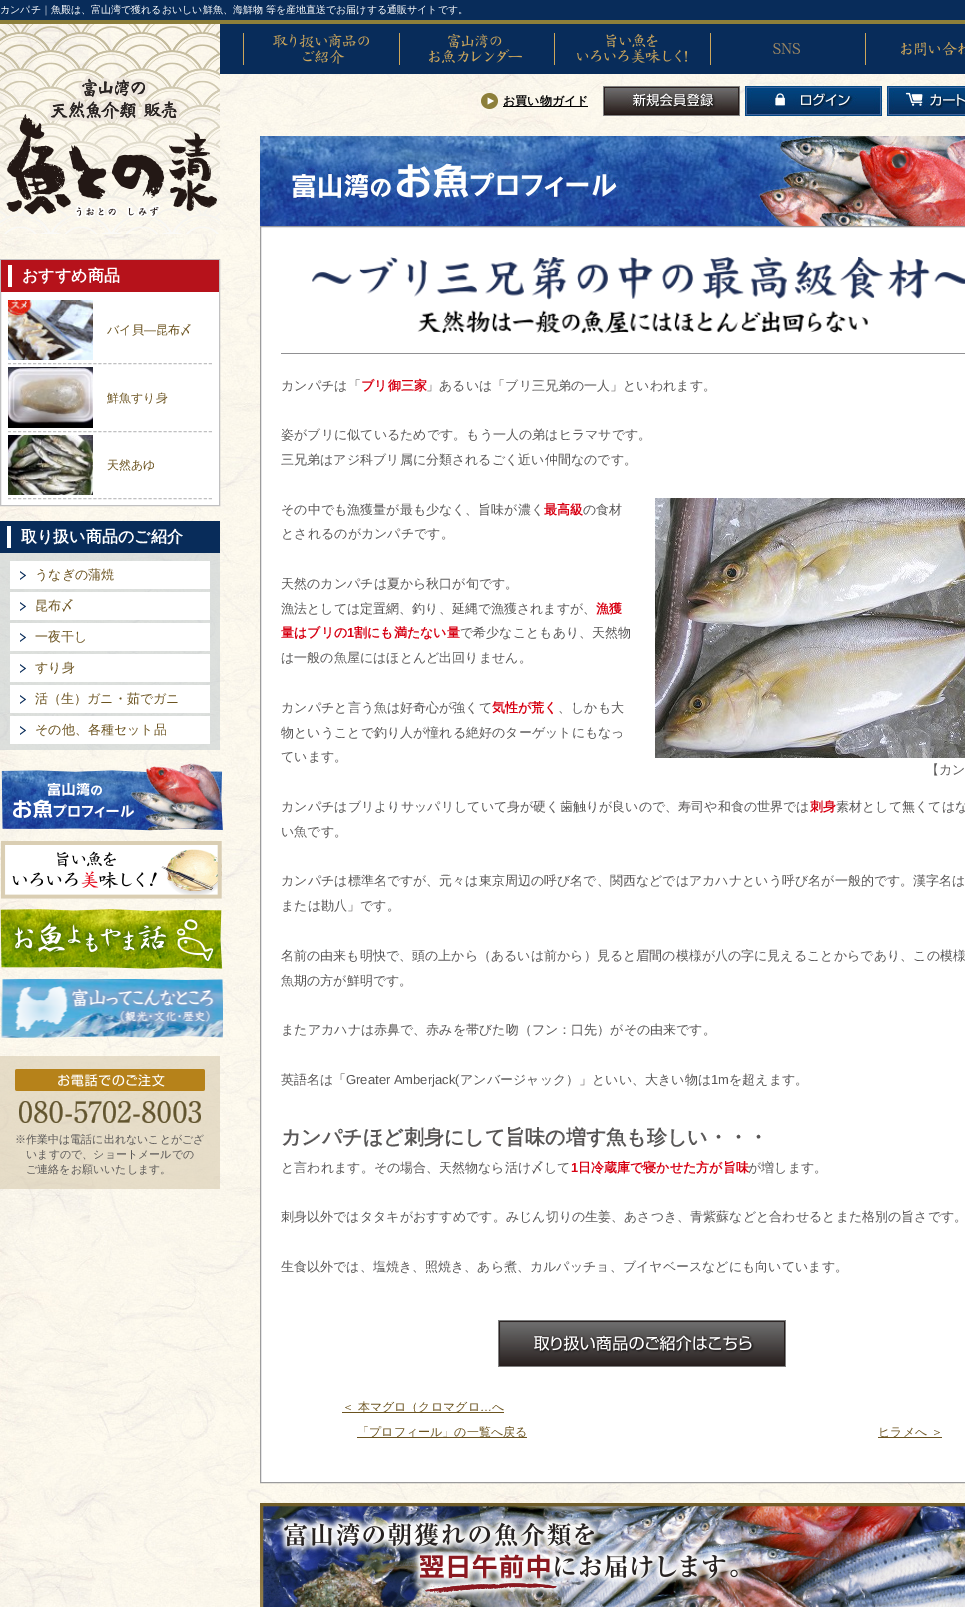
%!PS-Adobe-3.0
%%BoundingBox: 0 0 965 1607
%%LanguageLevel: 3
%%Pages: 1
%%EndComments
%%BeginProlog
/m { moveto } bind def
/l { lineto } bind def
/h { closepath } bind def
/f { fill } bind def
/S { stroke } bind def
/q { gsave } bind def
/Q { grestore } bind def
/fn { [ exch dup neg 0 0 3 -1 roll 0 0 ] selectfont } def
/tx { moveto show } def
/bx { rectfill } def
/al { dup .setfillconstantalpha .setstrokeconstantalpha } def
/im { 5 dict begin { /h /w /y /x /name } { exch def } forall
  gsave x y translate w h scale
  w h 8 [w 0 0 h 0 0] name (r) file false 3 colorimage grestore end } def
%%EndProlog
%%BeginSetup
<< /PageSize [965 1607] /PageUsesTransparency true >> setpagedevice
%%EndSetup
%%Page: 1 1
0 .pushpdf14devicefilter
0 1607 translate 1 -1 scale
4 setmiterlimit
1 setgray
0 0 965 1607 bx
(image0.raw) 0 74 965 1533 im
0.031 0.173 0.353 setrgbcolor
0 0 965 20 bx
0.553 0.498 0.227 setrgbcolor
0 20 965 4 bx
/WenQuanYiZenHei-Medium 10 fn
1 setgray
(カンパチ｜魚殿は、富山湾で獲れるおいしい鮮魚、海鮮物 等を産地直送でお届けする通販サイトです。) 0 13 tx
0.031 0.173 0.353 setrgbcolor
220 24 745 50 bx
(image1.raw) 0 24 220 210 im
0.8 0.651 0.357 setrgbcolor
243 33 1 32 bx
(image2.raw) 273 34 96 30 im
399 33 1 32 bx
(image3.raw) 429 34 93 29 im
554 33 1 32 bx
(image4.raw) 577 34 110 29 im
710 33 1 32 bx
(image5.raw) 750 43 73 41 im
865 33 1 32 bx
(image6.raw) 901 42 64 14 im
1 setgray
1 292 218 213 bx
0.753 0.753 0.757 setrgbcolor
0.5 259.5 219 246 rectstroke
0.714 0.071 0.106 setrgbcolor
1 260 218 32 bx
1 setgray
8 265 4 22 bx
/WenQuanYiZenHei-Bold 16 fn
(おすすめ商品) 22 281 tx
0.753 0.753 0.757 setrgbcolor
[3 2.02] 0 setdash
8 363.5 m 212 363.5 l S
(image7.raw) 8 300 85 60 im
/WenQuanYiZenHei-Medium 12 fn
0.42 0.325 0.122 setrgbcolor
(バイ貝) 107 334 tx
/LiberationSans-Regular 12 fn
(―) 144 334 tx
/WenQuanYiZenHei-Medium 12 fn
(昆布〆) 156 334 tx
0.753 0.753 0.757 setrgbcolor
8 431.5 m 212 431.5 l S
(image8.raw) 8 367 85 61 im
0.42 0.325 0.122 setrgbcolor
(鮮魚すり身) 107 402 tx
0.753 0.753 0.757 setrgbcolor
8 498.5 m 212 498.5 l S
(image9.raw) 8 435 85 60 im
0.42 0.325 0.122 setrgbcolor
(天然あゆ) 107 469 tx
0.5 al
0.741 0.78 0.804 setrgbcolor
0 553 220 197 bx
1 al
0.031 0.173 0.353 setrgbcolor
0 521 220 32 bx
1 setgray
7 526 4 22 bx
/WenQuanYiZenHei-Bold 16 fn
(取り扱い商品のご紹介) 21 542 tx
10 561 200 28 bx
(image10.raw) 20 571 6 9 im
/WenQuanYiZenHei-Medium 13 fn
0.42 0.325 0.122 setrgbcolor
(うなぎの蒲焼) 35 579 tx
1 setgray
10 592 200 28 bx
(image10.raw) 20 602 6 9 im
0.42 0.325 0.122 setrgbcolor
(昆布〆) 35 610 tx
1 setgray
10 623 200 28 bx
(image10.raw) 20 633 6 9 im
0.42 0.325 0.122 setrgbcolor
(一夜干し) 35 641 tx
1 setgray
10 654 200 28 bx
(image10.raw) 20 664 6 9 im
0.42 0.325 0.122 setrgbcolor
(すり身) 35 672 tx
1 setgray
10 685 200 28 bx
(image10.raw) 20 695 6 9 im
0.42 0.325 0.122 setrgbcolor
(活（生）ガニ・茹でガニ) 35 703 tx
1 setgray
10 716 200 28 bx
(image10.raw) 20 726 6 9 im
0.42 0.325 0.122 setrgbcolor
(その他、各種セット品) 35 734 tx
(image11.raw) 1 763 222 68 im
(image12.raw) 1 841 221 58 im
(image13.raw) 0 909 223 60 im
(image14.raw) 1 979 222 60 im
0.65 al
0.855 0.808 0.706 setrgbcolor
0 1056 220 133 bx
1 al
(image15.raw) 15 1069 190 22 im
(image16.raw) 19 1101 182 22 im
/WenQuanYiZenHei-Medium 11 fn
0.349 0.341 0.341 setrgbcolor
(※作業中は電話に出れないことがござ) 15 1143 tx
(いますので、ショートメールでの) 26 1158 tx
(ご連絡をお願いいたします。) 26 1173 tx
(image17.raw) 481 93 17 16 im
0 setgray
503 106 85 1 bx
/WenQuanYiZenHei-Bold 12 fn
(お買い物ガイド) 503 105 tx
(image18.raw) 603 86 137 30 im
(image19.raw) 745 86 137 30 im
(image20.raw) 887 86 78 30 im
(image21.raw) 260 136 705 90 im
1 setgray
260.5 226.5 m 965.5 226.5 l 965.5 1482.5 l 260.5 1482.5 l h q f Q
0.608 0.608 0.612 setrgbcolor
[] 0 setdash
S
0.565 0.565 0.573 setrgbcolor
281 353 684 1 bx
(image22.raw) 312 257 653 76 im
/WenQuanYiZenHei-Medium 13 fn
0.349 0.341 0.341 setrgbcolor
(カンパチは「) 281 390 tx
/WenQuanYiZenHei-Bold 13 fn
0.843 0 0.071 setrgbcolor
(ブリ御三家) 361 390 tx
/WenQuanYiZenHei-Medium 13 fn
0.349 0.341 0.341 setrgbcolor
(」あるいは「ブリ三兄弟の一人」といわれます。) 426 390 tx
(姿がブリに似ているためです。もう一人の弟はヒラマサです。) 281 439 tx
(三兄弟はアジ科ブリ属に分類されるごく近い仲間なのです。) 281 464 tx
(その中でも漁獲量が最も少なく、旨味が濃く) 281 514 tx
/WenQuanYiZenHei-Bold 13 fn
0.843 0 0.071 setrgbcolor
(最高級) 544 514 tx
/WenQuanYiZenHei-Medium 13 fn
0.349 0.341 0.341 setrgbcolor
(の食材) 583 514 tx
(とされるのがカンパチです。) 281 538 tx
(天然のカンパチは夏から秋口が旬です。) 281 588 tx
(漁法としては定置網、釣り、延縄で漁獲されますが、) 281 613 tx
/WenQuanYiZenHei-Bold 13 fn
0.843 0 0.071 setrgbcolor
(漁獲) 596 613 tx
(量はブリの) 281 637 tx
/LiberationSans-Bold 13 fn
(1) 347 637 tx
/WenQuanYiZenHei-Bold 13 fn
(割にも満たない量) 354 637 tx
/WenQuanYiZenHei-Medium 13 fn
0.349 0.341 0.341 setrgbcolor
(で希少なこともあり、天然物) 460 637 tx
(は一般の魚屋にはほとんど出回りません。) 281 662 tx
(カンパチと言う魚は好奇心が強くて) 281 712 tx
/WenQuanYiZenHei-Bold 13 fn
0.843 0 0.071 setrgbcolor
(気性が荒く) 492 712 tx
/WenQuanYiZenHei-Medium 13 fn
0.349 0.341 0.341 setrgbcolor
(、しかも大) 558 712 tx
(物ということで釣り人が憧れる絶好のターゲットにもなっ) 281 737 tx
(ています。) 281 761 tx
(image23.raw) 655 498 310 260 im
(【カン) 926 774 tx
(カンパチはブリよりサッパリしていて身が硬く歯触りが良いので、寿司や和食の世界では) 281 811 tx
/WenQuanYiZenHei-Bold 13 fn
0.843 0 0.071 setrgbcolor
(刺身) 810 811 tx
/WenQuanYiZenHei-Medium 13 fn
0.349 0.341 0.341 setrgbcolor
(素材として無くてはな) 836 811 tx
(い魚です。) 281 836 tx
(カンパチは標準名ですが、元々は東京周辺の呼び名で、関西などではアカハナという呼び名が一般的です。漢字名は) 281 885 tx
(または勘八」です。) 281 910 tx
(名前の由来も明快で、頭の上から（あるいは前から）見ると眉間の模様が八の字に見えることからであり、この模様) 281 960 tx
(魚期の方が鮮明です。) 281 985 tx
(またアカハナは赤鼻で、赤みを帯びた吻（フン：口先）がその由来です。) 281 1034 tx
(英語名は「) 281 1084 tx
/LiberationSans-Regular 13 fn
(Greater Amberjack\() 346 1084 tx
/WenQuanYiZenHei-Medium 13 fn
(アンバージャック）」といい、大きい物は) 460 1084 tx
/LiberationSans-Regular 13 fn
(1m) 711 1084 tx
/WenQuanYiZenHei-Medium 13 fn
(を超えます。) 729 1084 tx
/WenQuanYiZenHei-Bold 20 fn
(カンパチほど刺身にして旨味の増す魚も珍しい・・・) 281 1144 tx
/WenQuanYiZenHei-Medium 13 fn
(と言われます。その場合、天然物なら活け〆して) 281 1172 tx
/LiberationSans-Bold 13 fn
0.843 0 0.071 setrgbcolor
(1) 571 1172 tx
/WenQuanYiZenHei-Bold 13 fn
(日冷蔵庫で寝かせた方が旨味) 578 1172 tx
/WenQuanYiZenHei-Medium 13 fn
0.349 0.341 0.341 setrgbcolor
(が増します。) 748 1172 tx
(刺身以外ではタタキがおすすめです。みじん切りの生姜、あさつき、青紫蘇などと合わせるとまた格別の旨さです。) 281 1221 tx
(生食以外では、塩焼き、照焼き、あら煮、カルパッチョ、ブイヤベースなどにも向いています。) 281 1271 tx
(image24.raw) 498 1320 288 47 im
0.42 0.325 0.122 setrgbcolor
342 1412 162 1 bx
/WenQuanYiZenHei-Medium 12 fn
(＜ 本マグロ（クロマグロ) 342 1411 tx
/LiberationSans-Regular 12 fn
(…) 480 1411 tx
/WenQuanYiZenHei-Medium 12 fn
(へ) 492 1411 tx
357 1437 170 1 bx
(「プロフィール」の一覧へ戻る) 357 1436 tx
878 1437 64 1 bx
(ヒラメへ ＞) 878 1436 tx
(image25.raw) 260 1503 705 104 im
.poppdf14devicefilter showpage
%%EOF
